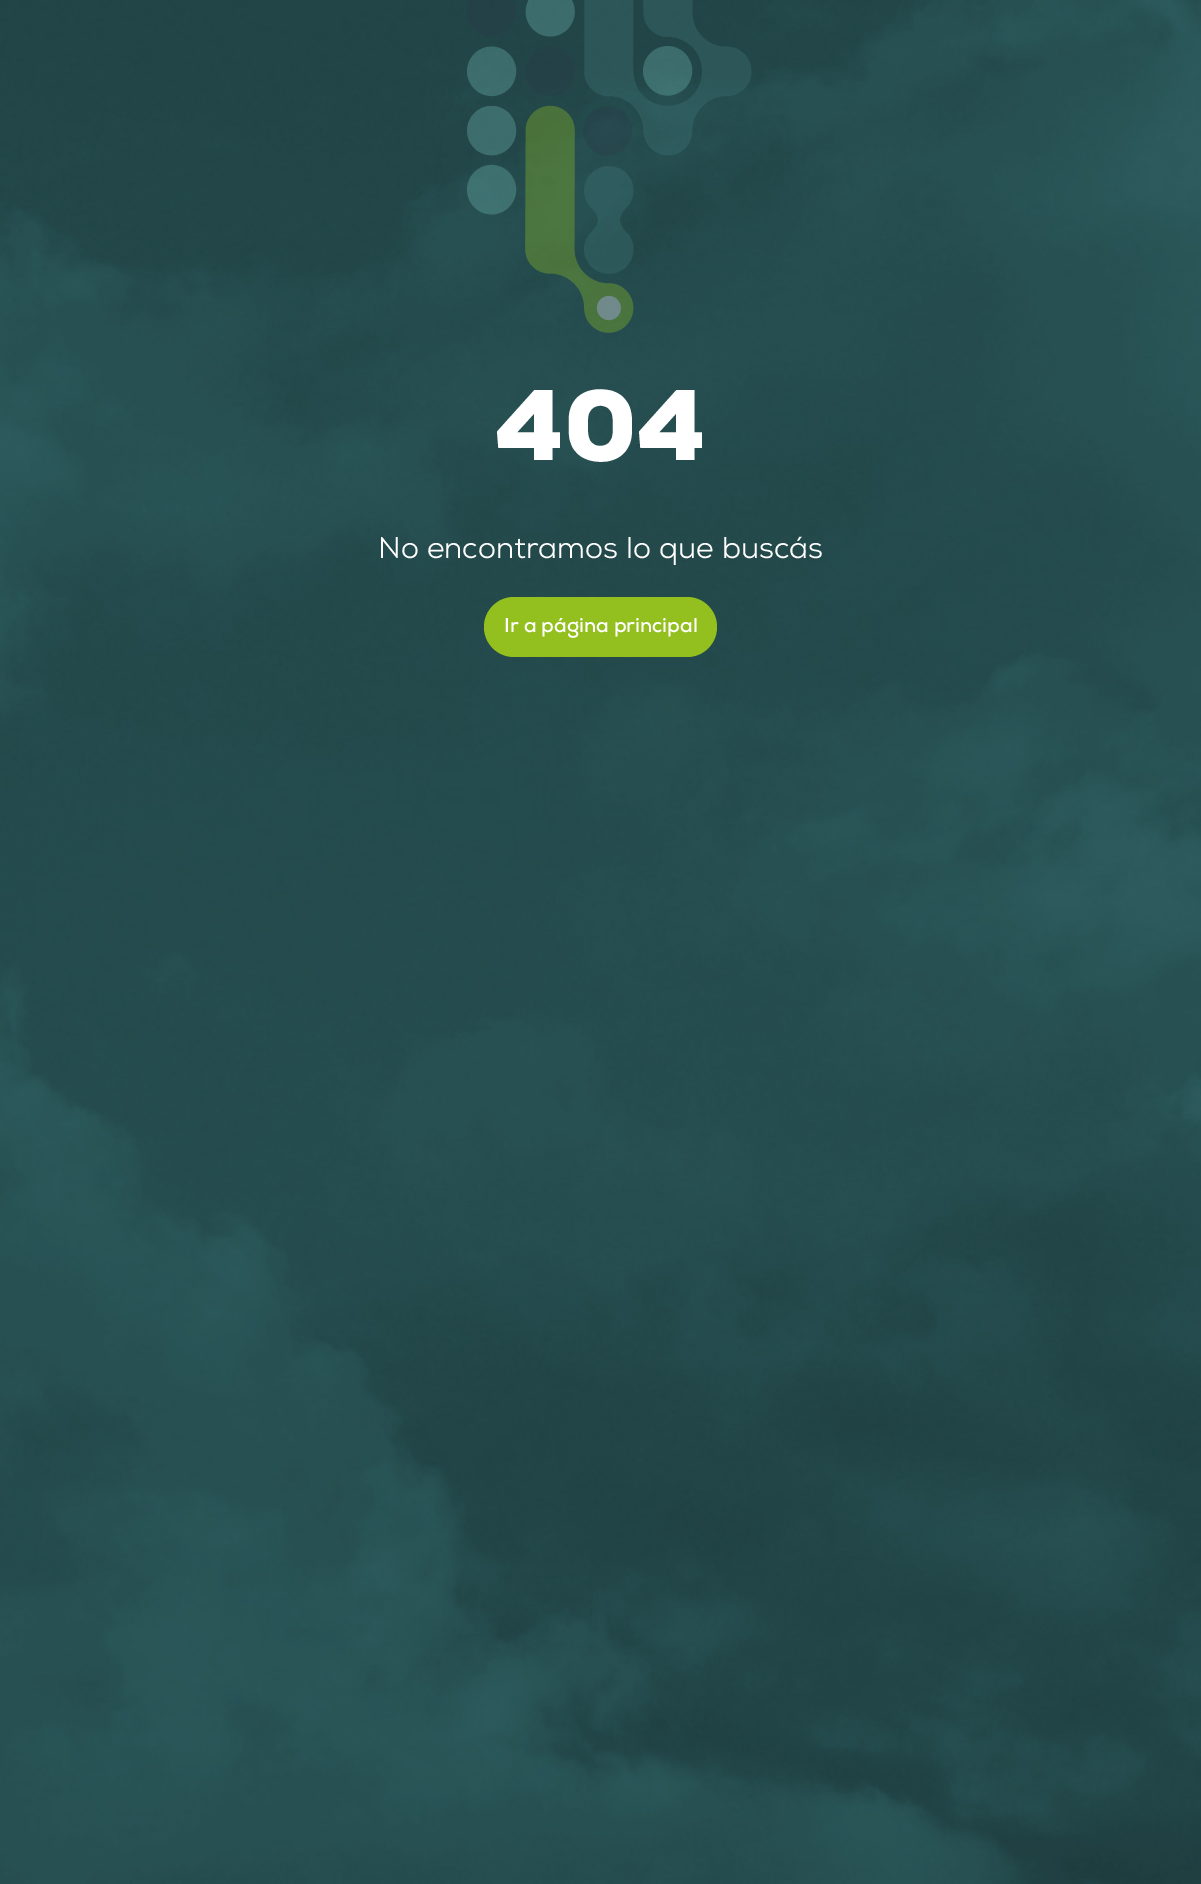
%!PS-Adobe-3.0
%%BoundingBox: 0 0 1201 1884
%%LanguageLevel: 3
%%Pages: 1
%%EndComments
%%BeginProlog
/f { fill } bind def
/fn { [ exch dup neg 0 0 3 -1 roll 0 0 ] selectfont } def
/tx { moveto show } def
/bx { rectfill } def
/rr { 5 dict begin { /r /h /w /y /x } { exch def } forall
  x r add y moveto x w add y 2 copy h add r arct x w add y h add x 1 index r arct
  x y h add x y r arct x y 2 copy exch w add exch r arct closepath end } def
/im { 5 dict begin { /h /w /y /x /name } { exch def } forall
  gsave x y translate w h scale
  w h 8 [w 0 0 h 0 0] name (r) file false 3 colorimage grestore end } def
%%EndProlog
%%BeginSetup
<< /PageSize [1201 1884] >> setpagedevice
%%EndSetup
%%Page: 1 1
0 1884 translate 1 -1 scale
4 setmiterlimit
1 setgray
0 0 1201 1884 bx
(image0.raw) 0 0 1201 1884 im
(image1.raw) 467 0 285 333 im
/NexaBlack-Black 100 fn
(404) 495 460 tx
/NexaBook-Regular 30 fn
(No encontramos lo que buscás) 378 558 tx
0.576 0.753 0.122 setrgbcolor
484 597 233 60 30 rr f
/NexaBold-Bold 20 fn
1 setgray
(Ir a página principal) 504 632 tx
showpage
%%EOF
